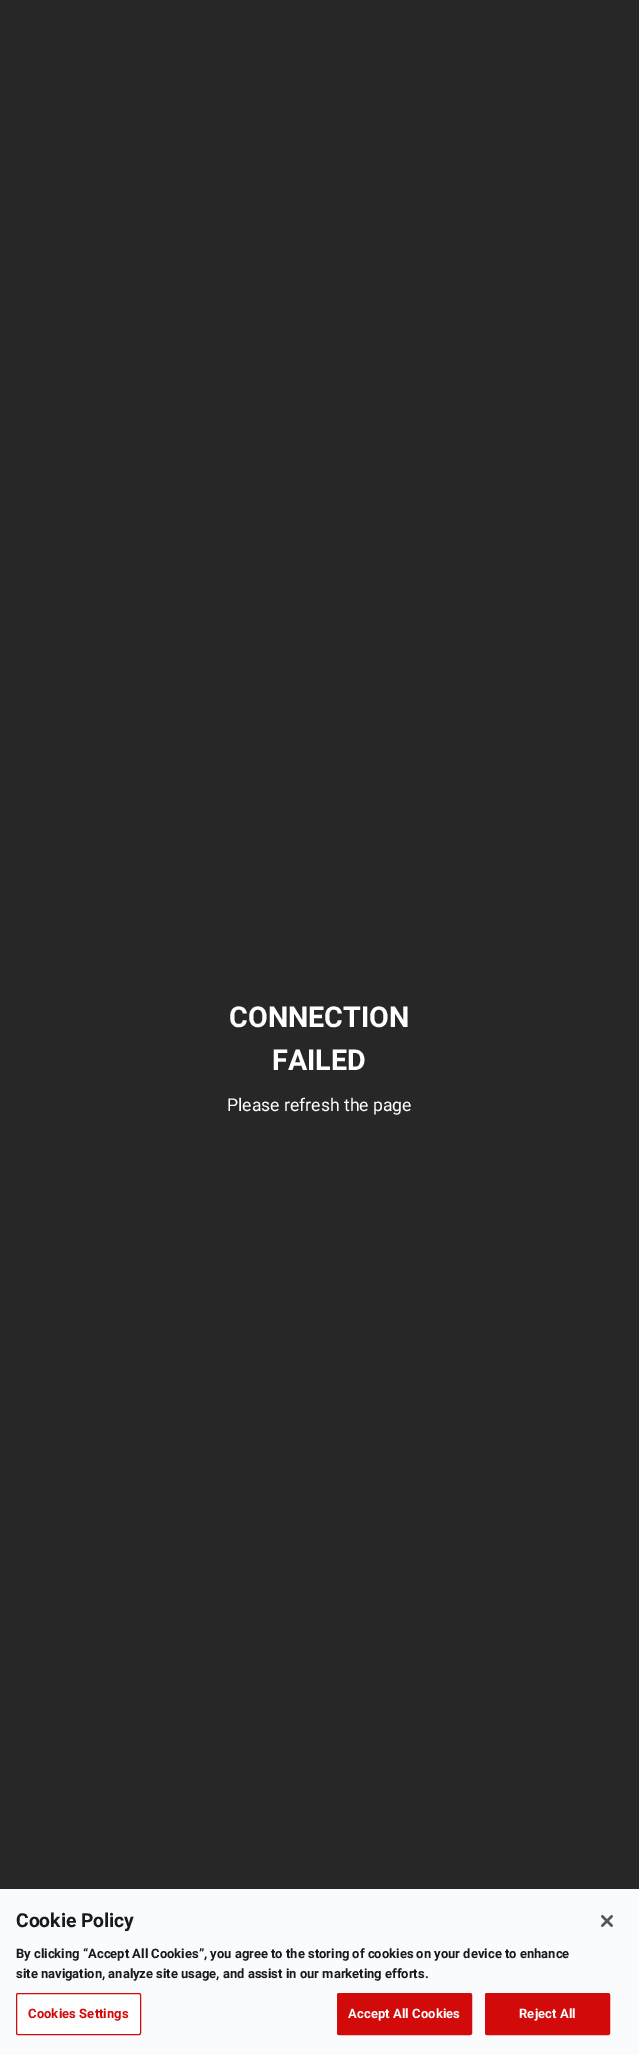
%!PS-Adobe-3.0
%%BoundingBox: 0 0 639 2055
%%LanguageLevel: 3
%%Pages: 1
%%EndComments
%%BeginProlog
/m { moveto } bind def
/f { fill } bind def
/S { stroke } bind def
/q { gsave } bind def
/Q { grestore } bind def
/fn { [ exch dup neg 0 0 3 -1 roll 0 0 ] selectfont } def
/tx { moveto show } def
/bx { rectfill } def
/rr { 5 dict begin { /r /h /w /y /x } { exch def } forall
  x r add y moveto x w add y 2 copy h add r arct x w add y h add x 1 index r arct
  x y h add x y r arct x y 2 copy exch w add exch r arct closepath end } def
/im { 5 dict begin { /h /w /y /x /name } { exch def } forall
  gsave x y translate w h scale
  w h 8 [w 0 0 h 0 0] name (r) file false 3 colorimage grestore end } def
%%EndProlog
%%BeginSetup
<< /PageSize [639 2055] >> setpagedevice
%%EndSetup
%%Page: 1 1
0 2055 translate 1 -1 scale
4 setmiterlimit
0.153 setgray
0 0 639 2055 bx
/Roboto-Bold 28.75 fn
1 setgray
(CONNECTION) 229 1027 tx
(FAILED) 272 1070 tx
/Roboto-Regular 17.6 fn
(Please refresh the page) 227 1111 tx
0.98 0.984 0.992 setrgbcolor
0 1889 639 166 bx
/Roboto-Bold 19.25 fn
0.098 0.098 0.118 setrgbcolor
(Cookie Policy) 16 1927 tx
/Roboto-Bold 13 fn
(By clicking “Accept All Cookies”, you agree to the storing of cookies on your device to enhance) 16 1958 tx
(site navigation, analyze site usage, and assist in our marketing efforts.) 16 1978 tx
1 setgray
16.5 1993.5 124 41 1.5 rr q f Q
0.824 0.039 0.039 setrgbcolor
S
28 2018 m 0.1 0 (Cookies Settings) ashow
337.5 1993.5 134 41 1.5 rr q f Q
S
1 setgray
348 2018 m 0.1 0 (Accept All Cookies) ashow
0.824 0.039 0.039 setrgbcolor
485.5 1993.5 124 41 1.5 rr q f Q
S
1 setgray
519 2018 m 0.1 0 (Reject All) ashow
(image0.raw) 601 1915 12 12 im
showpage
%%EOF
